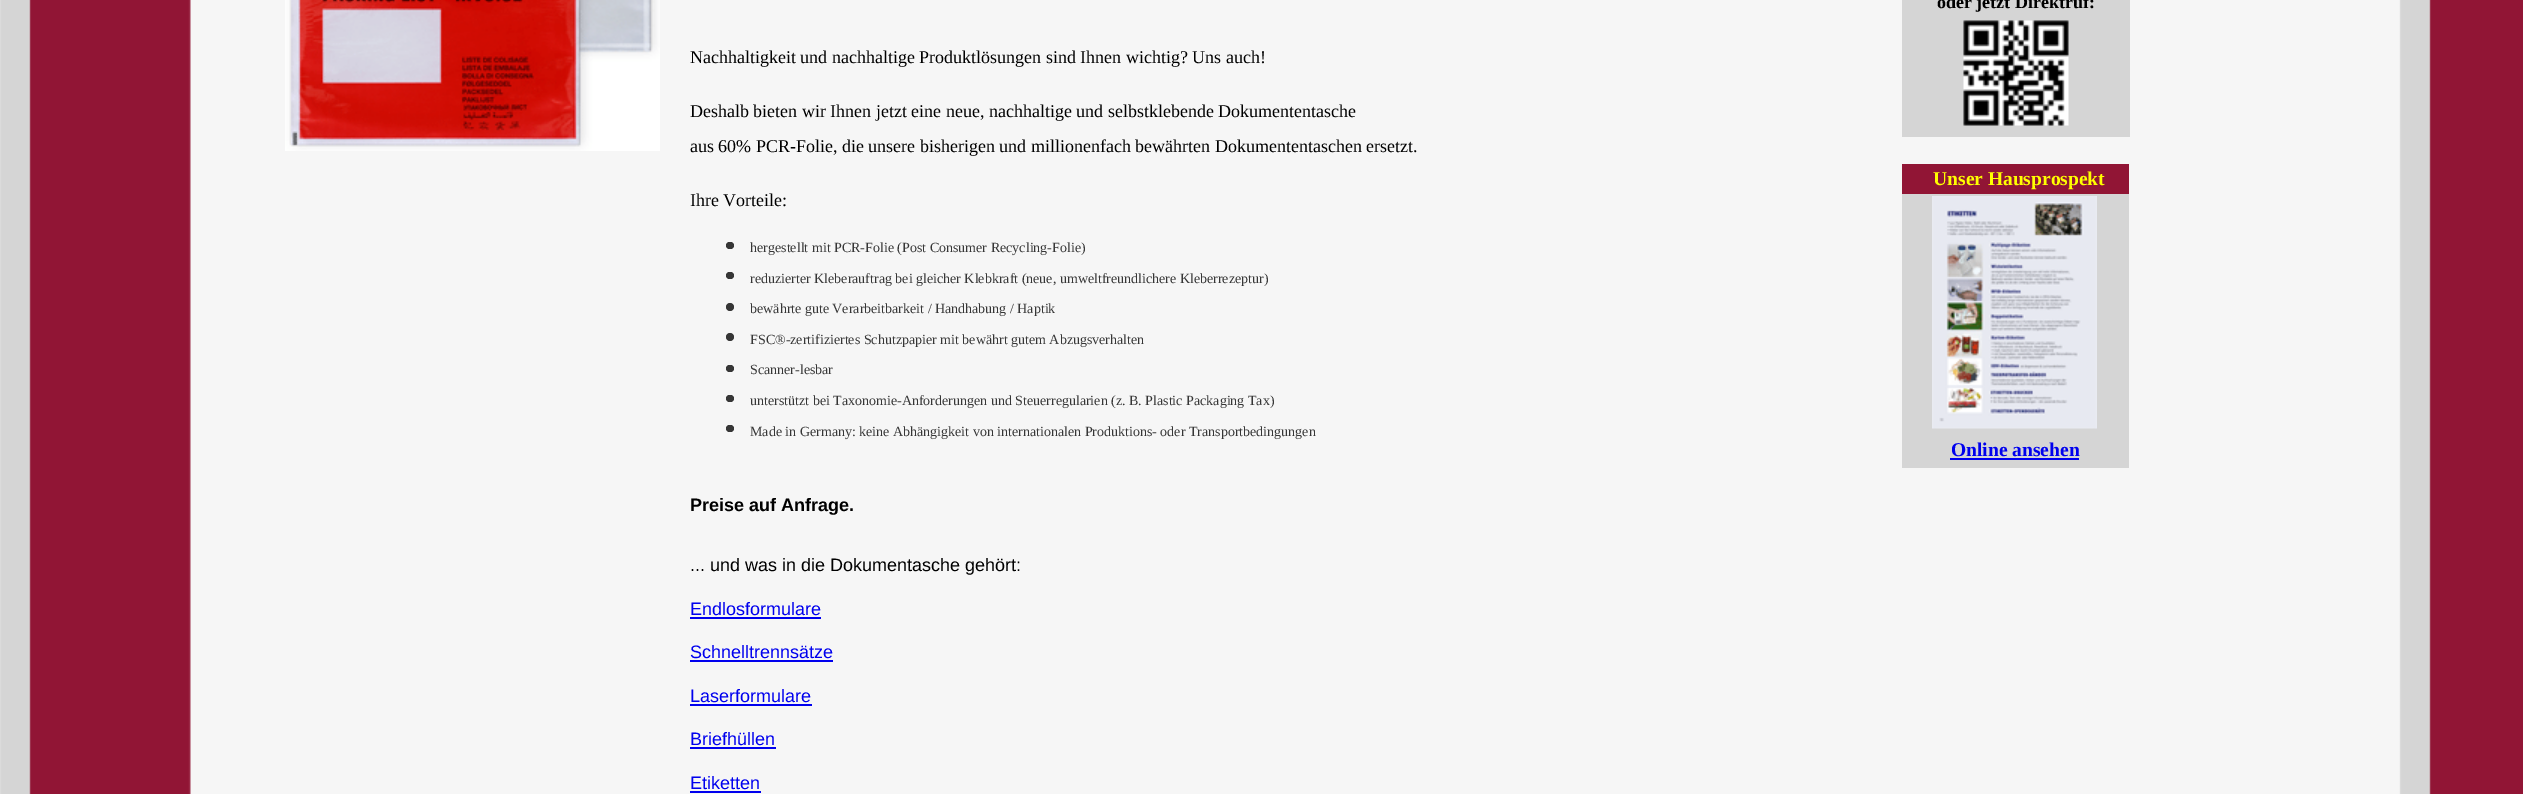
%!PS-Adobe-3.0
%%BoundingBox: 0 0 2523 794
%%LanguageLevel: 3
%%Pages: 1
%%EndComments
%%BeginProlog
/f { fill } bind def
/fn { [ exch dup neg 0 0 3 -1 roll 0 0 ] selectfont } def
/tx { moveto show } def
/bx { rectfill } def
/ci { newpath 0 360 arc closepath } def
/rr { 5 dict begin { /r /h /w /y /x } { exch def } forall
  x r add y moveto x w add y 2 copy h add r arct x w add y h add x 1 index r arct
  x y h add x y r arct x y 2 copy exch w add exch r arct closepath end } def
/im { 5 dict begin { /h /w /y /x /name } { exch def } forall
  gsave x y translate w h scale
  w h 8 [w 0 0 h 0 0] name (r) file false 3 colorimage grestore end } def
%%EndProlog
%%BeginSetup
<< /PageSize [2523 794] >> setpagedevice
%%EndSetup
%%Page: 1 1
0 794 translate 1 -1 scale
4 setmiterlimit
1 setgray
0 0 2523 794 bx
(image0.raw) 0 0 2523 794 im
(image1.raw) 285 0 375 151 im
/LiberationSerif-Regular 18 fn
0 setgray
(Nachhaltigkeit und nachhaltige Produktlösungen sind Ihnen wichtig? Uns auch!) 690 63 tx
(Deshalb bieten wir Ihnen jetzt eine neue, nachhaltige und selbstklebende Dokumententasche) 690 117 tx
(aus 60% PCR-Folie, die unsere bisherigen und millionenfach bewährten Dokumententaschen ersetzt.) 690 152 tx
(Ihre Vorteile:) 690 206 tx
0.212 setgray
726 242 8 7 3.5 rr f
/LiberationSerif-Regular 14 fn
(hergestellt mit PCR-Folie \(Post Consumer Recycling-Folie\)) 750 252 tx
726 272 8 7 3.5 rr f
(reduzierter Kleberauftrag bei gleicher Klebkraft \(neue, umweltfreundlichere Kleberrezeptur\)) 750 283 tx
730 307 4 ci f
(bewährte gute Verarbeitbarkeit / Handhabung / Haptik) 750 313 tx
730 337 4 ci f
(FSC®-zertifiziertes Schutzpapier mit bewährt gutem Abzugsverhalten) 750 344 tx
726 365 8 7 3.5 rr f
(Scanner-lesbar) 750 374 tx
726 395 8 7 3.5 rr f
(unterstützt bei Taxonomie-Anforderungen und Steuerregularien \(z. B. Plastic Packaging Tax\)) 750 405 tx
726 425 8 7 3.5 rr f
(Made in Germany: keine Abhängigkeit von internationalen Produktions- oder Transportbedingungen) 750 436 tx
/LiberationSans-Bold 18 fn
0 setgray
(Preise auf Anfrage.) 690 511 tx
/LiberationSans-Regular 18 fn
(... und was in die Dokumentasche gehört:) 690 571 tx
0 0 0.933 setrgbcolor
(Endlosformulare) 690 615 tx
690 617 131 2 bx
(Schnelltrennsätze) 690 658 tx
690 660 143 2 bx
(Laserformulare) 690 702 tx
690 704 122 2 bx
(Briefhüllen) 690 745 tx
690 747 86 2 bx
(Etiketten) 690 789 tx
690 791 71 2 bx
0.835 setgray
1902 0 228 137 bx
/LiberationSerif-Bold 18 fn
0 setgray
(oder jetzt Direktruf:) 1937 8 tx
(image2.raw) 1963 20 106 106 im
0.569 0.082 0.208 setrgbcolor
1902 164 227 30 bx
/LiberationSerif-Bold 19.5 fn
1 1 0 setrgbcolor
(Unser Hausprospekt) 1933 185 tx
0.835 setgray
1902 194 227 274 bx
(image3.raw) 1932 196 165 233 im
0 0 0.933 setrgbcolor
(Online ansehen) 1951 456 tx
1950 458 129 2 bx
showpage
%%EOF
